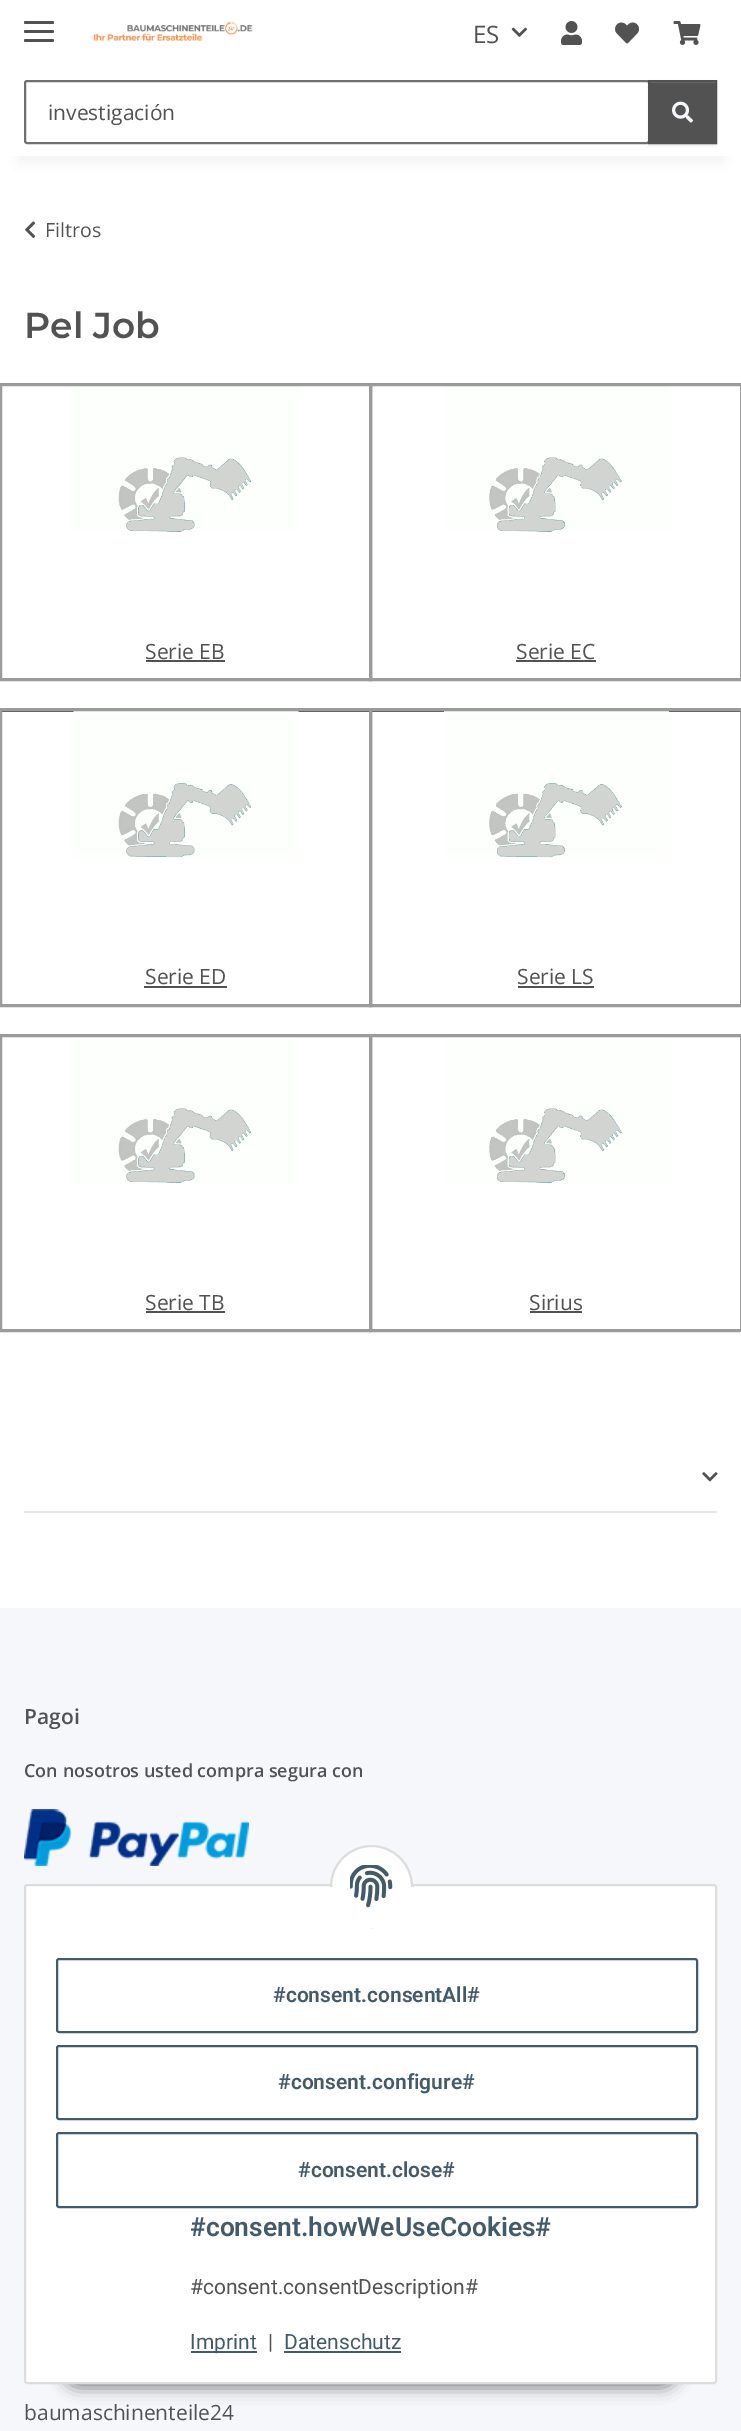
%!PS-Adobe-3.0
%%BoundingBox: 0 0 741 2431
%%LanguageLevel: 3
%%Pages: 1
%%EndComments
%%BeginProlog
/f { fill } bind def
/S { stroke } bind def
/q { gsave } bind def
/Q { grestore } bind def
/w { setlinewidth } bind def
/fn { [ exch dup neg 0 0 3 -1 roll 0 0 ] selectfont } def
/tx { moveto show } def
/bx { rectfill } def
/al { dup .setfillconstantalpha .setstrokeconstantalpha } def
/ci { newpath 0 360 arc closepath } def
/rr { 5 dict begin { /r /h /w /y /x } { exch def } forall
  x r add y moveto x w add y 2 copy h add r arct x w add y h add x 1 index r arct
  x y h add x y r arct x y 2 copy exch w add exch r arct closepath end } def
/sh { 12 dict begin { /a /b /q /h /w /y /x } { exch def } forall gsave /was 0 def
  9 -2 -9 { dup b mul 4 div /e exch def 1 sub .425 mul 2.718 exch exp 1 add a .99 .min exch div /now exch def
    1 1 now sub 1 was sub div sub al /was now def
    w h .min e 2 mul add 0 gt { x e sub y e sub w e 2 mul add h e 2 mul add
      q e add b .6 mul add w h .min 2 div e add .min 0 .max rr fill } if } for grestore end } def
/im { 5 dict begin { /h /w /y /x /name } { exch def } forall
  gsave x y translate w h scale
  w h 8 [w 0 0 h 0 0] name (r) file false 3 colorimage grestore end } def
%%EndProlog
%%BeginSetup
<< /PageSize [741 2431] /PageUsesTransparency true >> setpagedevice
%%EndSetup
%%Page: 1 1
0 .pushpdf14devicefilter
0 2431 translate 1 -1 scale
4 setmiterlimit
0.961 0.969 0.98 setrgbcolor
0 0 741 2431 bx
1 setgray
0 156 741 1452 bx
0 setgray
18 42 705 120 0 7 0.06 sh
1 setgray
0 0 741 156 bx
0.322 setgray
24 30 30 3 1.5 rr f
24 21 30 3 1.5 rr f
24 39 30 3 1.5 rr f
(image0.raw) 93 21 160 20 im
/OpenSans-Regular 24 fn
(ES) 473 43 tx
(image1.raw) 511 27 16 10 im
(image2.raw) 561 21 21 24 im
(image3.raw) 615 22 24 22 im
(image4.raw) 673 21 28 24 im
0.439 setgray
2 w
25 81 624 62 2 rr S
/OpenSans-Regular 21 fn
0.322 setgray
(investigación) 48 120 tx
0 setgray
648 81 69 65 0 1 0.07 sh
0.322 setgray
650 83 65 59 bx
0.424 setgray
650 82 66 1 bx
0.322 setgray
649 81 67 62 rectstroke
(image5.raw) 672 101 21 22 im
(image6.raw) 25 221 11 17 im
/OpenSans-Regular 19.5 fn
(Filtros) 45 237 tx
/Montserrat-SemiBold 36 fn
(Pel Job) 24 338 tx
(image7.raw) 73 386 226 146 im
146 660 79 2 bx
0.608 setgray
3 w
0.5 384.5 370 295 rectstroke
/OpenSans-Regular 21 fn
0.322 setgray
(Serie EB) 145 659 tx
(image8.raw) 444 386 225 146 im
516 660 80 2 bx
0.608 setgray
370.5 384.5 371 295 rectstroke
0.322 setgray
(Serie EC) 516 659 tx
0 711 371 1 bx
(image9.raw) 73 711 226 147 im
144 986 83 2 bx
0.608 setgray
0.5 709.5 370 296 rectstroke
0.322 setgray
(Serie ED) 145 984 tx
371 711 370 1 bx
(image10.raw) 444 711 225 147 im
518 986 76 2 bx
0.608 setgray
370.5 709.5 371 296 rectstroke
0.322 setgray
(Serie LS) 517 984 tx
(image11.raw) 73 1037 226 146 im
146 1311 79 2 bx
0.608 setgray
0.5 1035.5 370 295 rectstroke
0.322 setgray
(Serie TB) 145 1310 tx
(image12.raw) 444 1037 225 146 im
530 1311 52 2 bx
0.608 setgray
370.5 1035.5 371 295 rectstroke
0.322 setgray
(Sirius) 529 1310 tx
(image13.raw) 702 1472 16 10 im
0.902 setgray
24 1511 693 2 bx
/OpenSans-SemiBold 21 fn
0.322 setgray
(Pagoi) 24 1724 tx
/OpenSans-SemiBold 18 fn
(Con nosotros usted compra segura con) 24 1777 tx
(image14.raw) 24 1809 225 57 im
/OpenSans-Regular 21 fn
(baumaschinenteile24) 24 2420 tx
0 setgray
60 2340 621 48 24 7.5 0.45 sh
1 setgray
25 1885 691 498 2 rr q f Q
0.867 setgray
2 w
S
1 setgray
371.5 1886.5 40.5 ci q f Q
0.867 setgray
S
1 setgray
330 1887 83 41 bx
(image15.raw) 350 1865 43 43 im
0.263 0.353 0.42 setrgbcolor
57 1959 640 73 2 rr S
/Roboto-SemiBold 21 fn
(#consent.consentAll#) 273 2002 tx
57 2046 640 73 2 rr S
(#consent.configure#) 278 2089 tx
57 2133 640 74 2 rr S
(#consent.close#) 298 2177 tx
/Roboto-SemiBold 26.4 fn
(#consent.howWeUseCookies#) 190 2236 tx
/Roboto-Regular 21 fn
0.322 setgray
(#consent.consentDescription#) 190 2294 tx
0.263 0.353 0.42 setrgbcolor
191 2351 66 2 bx
(Imprint) 190 2349 tx
0.322 setgray
(|) 268 2349 tx
0.263 0.353 0.42 setrgbcolor
(Datenschutz) 284 2349 tx
284 2351 117 2 bx
.poppdf14devicefilter showpage
%%EOF
